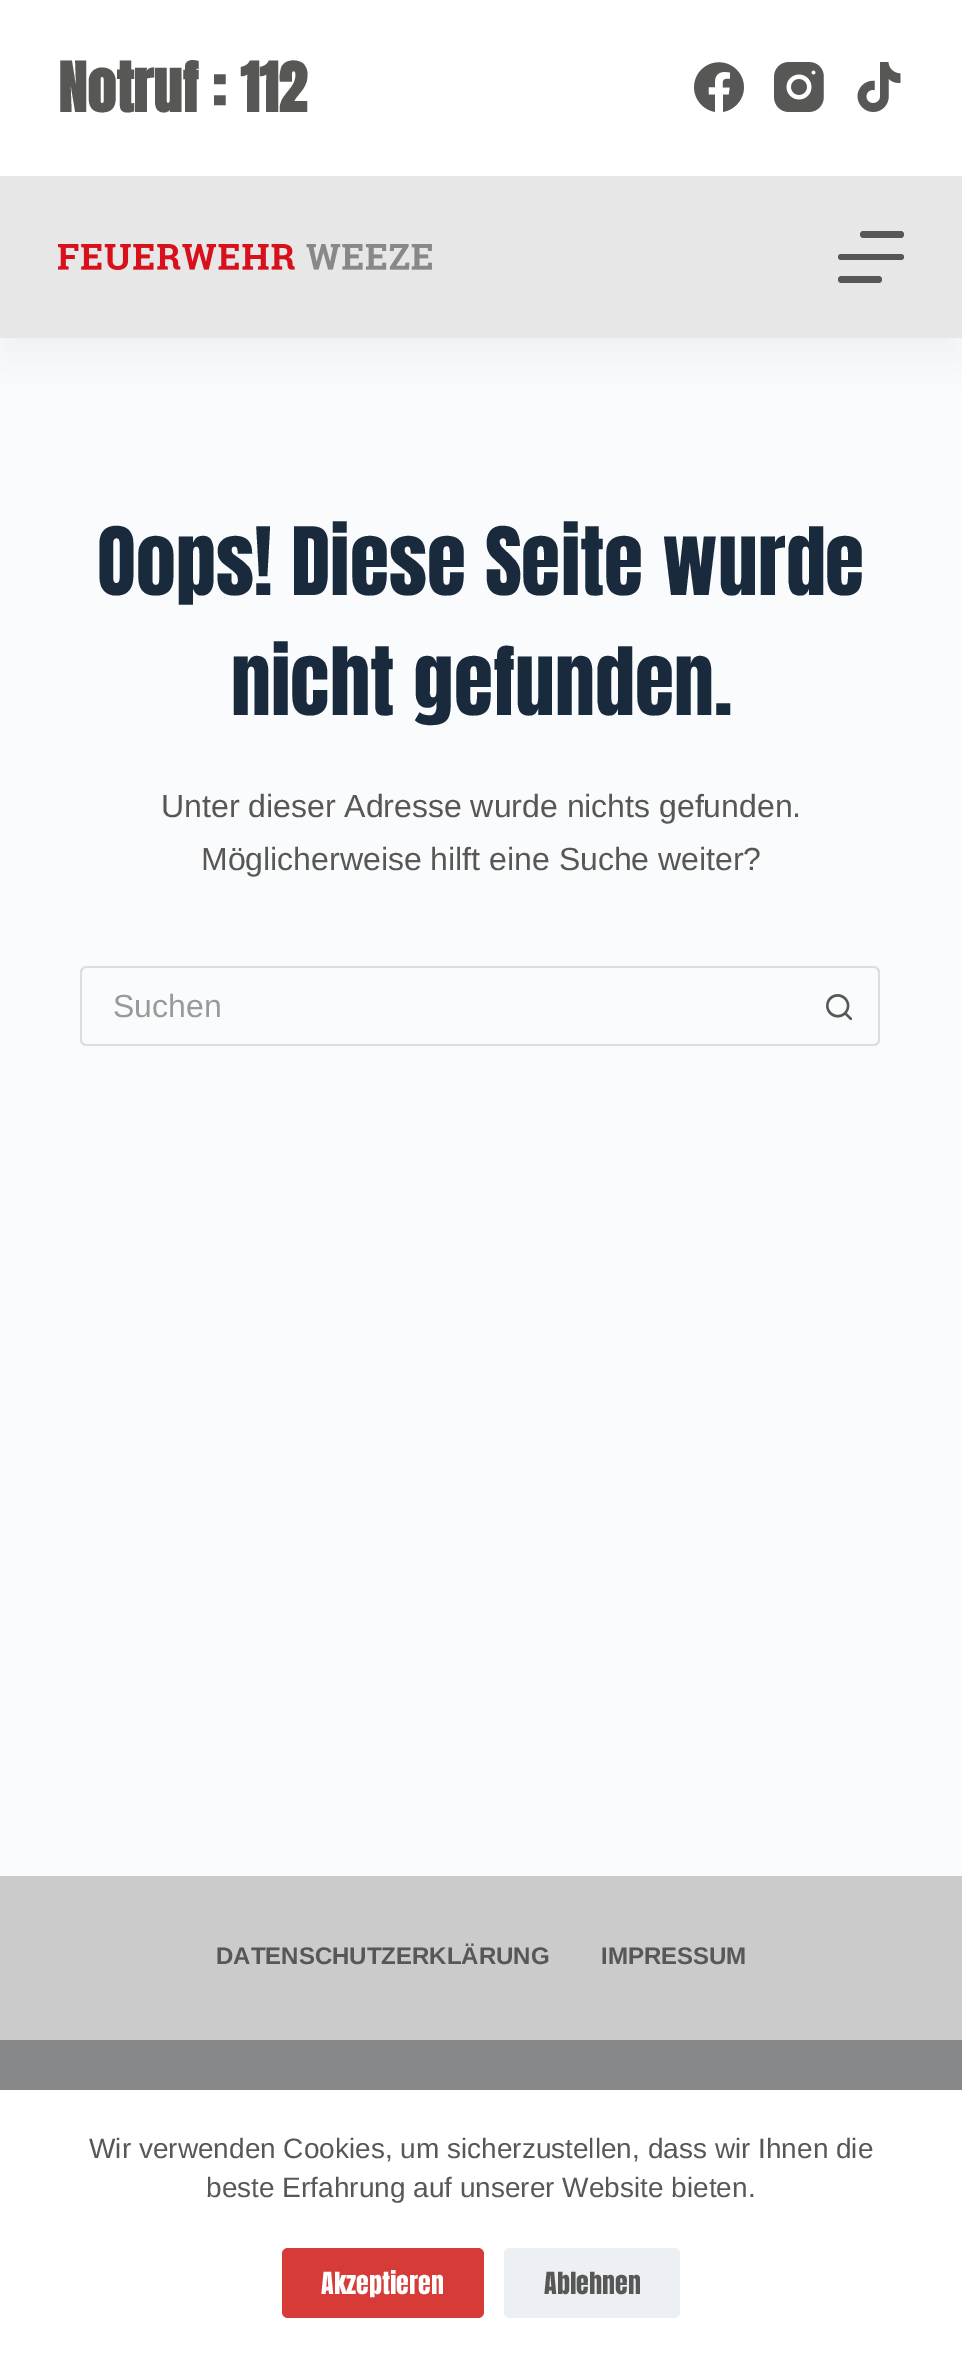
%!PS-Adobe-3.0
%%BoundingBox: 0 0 962 2358
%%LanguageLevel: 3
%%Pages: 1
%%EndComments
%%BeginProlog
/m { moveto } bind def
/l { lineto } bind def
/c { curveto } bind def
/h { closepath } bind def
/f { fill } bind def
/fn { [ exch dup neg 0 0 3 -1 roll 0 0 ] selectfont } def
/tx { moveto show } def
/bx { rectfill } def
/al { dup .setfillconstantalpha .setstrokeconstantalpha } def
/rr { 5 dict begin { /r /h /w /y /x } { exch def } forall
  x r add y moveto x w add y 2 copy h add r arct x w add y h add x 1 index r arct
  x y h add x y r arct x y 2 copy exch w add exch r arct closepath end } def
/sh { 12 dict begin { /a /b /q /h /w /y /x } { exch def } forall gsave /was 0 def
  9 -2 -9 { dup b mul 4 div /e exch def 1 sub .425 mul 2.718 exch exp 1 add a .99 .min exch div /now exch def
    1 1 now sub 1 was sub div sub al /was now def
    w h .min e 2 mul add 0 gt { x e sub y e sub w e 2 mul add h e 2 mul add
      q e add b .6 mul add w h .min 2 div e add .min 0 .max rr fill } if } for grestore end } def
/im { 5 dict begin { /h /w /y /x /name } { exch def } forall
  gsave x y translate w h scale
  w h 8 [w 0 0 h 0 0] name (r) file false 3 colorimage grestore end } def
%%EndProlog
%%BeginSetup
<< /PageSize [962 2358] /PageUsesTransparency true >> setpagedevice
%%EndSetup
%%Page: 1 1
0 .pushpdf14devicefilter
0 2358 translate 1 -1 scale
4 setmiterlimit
0.98 0.984 0.988 setrgbcolor
0 0 962 2358 bx
0.173 0.243 0.314 setrgbcolor
0 196 962 162 0 20 0.05 sh
1 setgray
0 0 962 176 bx
/Anton-Bold 58 fn
0.341 0.341 0.337 setrgbcolor
(Notruf : 112) 58 112 tx
(image0.raw) 694 62 50 50 im
(image1.raw) 774 62 50 50 im
(image2.raw) 857 62 44 50 im
0.906 setgray
0 176 962 162 bx
(image3.raw) 58 244 374 26 im
0.341 0.341 0.337 setrgbcolor
860 231 44 7 3.5 rr f
838 254 66 6 3 rr f
838 276 44 7 3.5 rr f
/Anton-Regular 80 fn
0.098 0.165 0.239 setrgbcolor
(Oops! Diese Seite wurde) 97 595 tx
(nicht gefunden.) 231 715 tx
/LiberationSans-Regular 32 fn
0.341 0.341 0.337 setrgbcolor
(Unter dieser Adresse wurde nichts gefunden.) 161 817 tx
(Möglicherweise hilft eine Suche weiter?) 201 870 tx
0.867 setgray
86 966 m 800 966 l 800 1046 l 86 1046 l 83 1046 80 1043 80 1040 c 80 972 l 80 969 83 966 86 966 c h 86 968 m 800 968 l 800 1044 l 86 1044 l 84 1044 82 1042 82 1040 c 82 972 l 82 970 84 968 86 968 c h eofill
0.596 0.6 0.596 setrgbcolor
(Suchen) 113 1017 tx
0.867 setgray
800 966 m 874 966 l 877 966 880 969 880 972 c 880 1040 l 880 1043 877 1046 874 1046 c 800 1046 l h 800 968 m 874 968 l 876 968 878 970 878 972 c 878 1040 l 878 1042 876 1044 874 1044 c 800 1044 l h eofill
(image4.raw) 826 994 26 26 im
0.529 0.533 0.541 setrgbcolor
0 2040 962 50 bx
0.796 setgray
0 1876 962 164 bx
/LiberationSans-Bold 24 fn
0.341 0.341 0.337 setrgbcolor
(DATENSCHUTZERKLÄRUNG) 216 1964 tx
(IMPRESSUM) 601 1964 tx
1 setgray
0 2090 962 268 bx
/LiberationSans-Regular 28 fn
0.341 0.341 0.337 setrgbcolor
(Wir verwenden Cookies, um sicherzustellen, dass wir Ihnen die) 89 2158 tx
(beste Erfahrung auf unserer Website bieten.) 206 2197 tx
0.839 0.231 0.216 setrgbcolor
282 2248 202 70 6 rr f
/Anton-Regular 26 fn
1 setgray
(Akzeptieren) 321 2294 tx
0.925 0.937 0.953 setrgbcolor
504 2248 176 70 6 rr f
0.341 0.341 0.337 setrgbcolor
(Ablehnen) 544 2294 tx
.poppdf14devicefilter showpage
%%EOF
